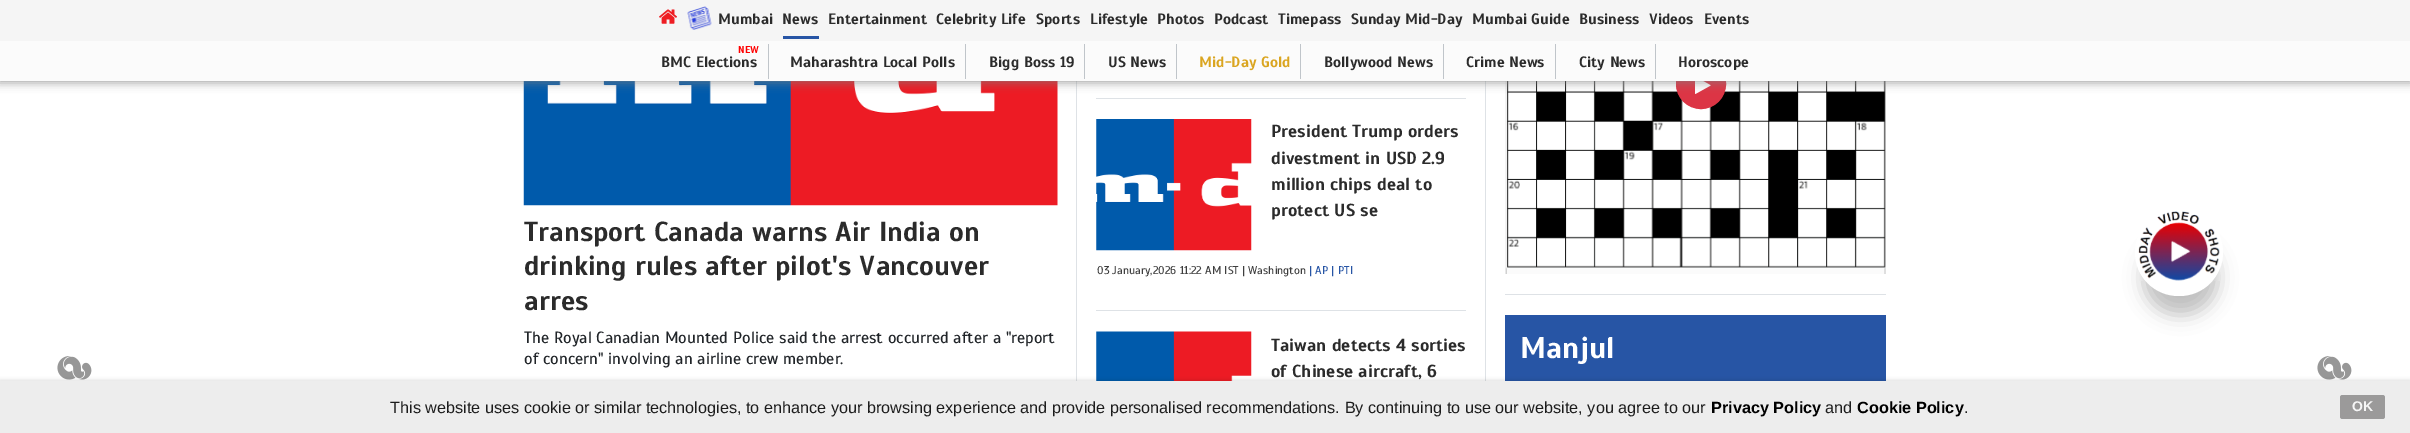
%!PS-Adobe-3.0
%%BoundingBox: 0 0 2410 433
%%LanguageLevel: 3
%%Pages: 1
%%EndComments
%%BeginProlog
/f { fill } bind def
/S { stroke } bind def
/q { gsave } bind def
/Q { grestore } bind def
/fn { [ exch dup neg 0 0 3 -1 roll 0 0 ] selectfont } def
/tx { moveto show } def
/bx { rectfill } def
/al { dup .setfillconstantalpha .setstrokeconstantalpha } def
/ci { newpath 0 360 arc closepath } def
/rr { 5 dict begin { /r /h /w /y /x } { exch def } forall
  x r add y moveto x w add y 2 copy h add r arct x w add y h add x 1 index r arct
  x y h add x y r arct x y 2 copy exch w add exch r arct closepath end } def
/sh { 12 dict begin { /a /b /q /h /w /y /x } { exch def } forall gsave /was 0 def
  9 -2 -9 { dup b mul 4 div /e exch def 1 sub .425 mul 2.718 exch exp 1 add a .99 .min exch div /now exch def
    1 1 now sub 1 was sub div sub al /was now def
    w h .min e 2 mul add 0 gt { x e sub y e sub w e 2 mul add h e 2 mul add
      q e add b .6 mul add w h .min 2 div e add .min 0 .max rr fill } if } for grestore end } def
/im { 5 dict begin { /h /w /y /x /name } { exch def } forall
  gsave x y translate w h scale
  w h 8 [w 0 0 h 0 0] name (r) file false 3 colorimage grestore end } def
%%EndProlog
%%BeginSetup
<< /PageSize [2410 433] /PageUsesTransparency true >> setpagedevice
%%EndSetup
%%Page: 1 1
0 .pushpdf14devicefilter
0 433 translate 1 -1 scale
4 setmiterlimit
1 setgray
0 0 2410 433 bx
(image2.raw) 523 81 535 125 im
0.871 0.886 0.902 setrgbcolor
1076 81 1 300 bx
1485 81 1 300 bx
(image6.raw) 1505 81 381 193 im
0.863 0.208 0.271 setrgbcolor
1701 84 24.5 ci q f Q
S
(image5.raw) 1695 81 16 13 im
0.502 setgray
-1 -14 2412 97 0 4.5 0.67 sh
0.961 setgray
0 0 2410 41 bx
(image0.raw) 659 9 18 15 im
(image1.raw) 687 6 25 24 im
/Scada-Bold 15 fn
0.169 setgray
(Mumbai) 718 24 tx
0.153 0.333 0.647 setrgbcolor
783 36 36 3 bx
0.169 setgray
(News) 782 24 tx
(Entertainment) 828 24 tx
(Celebrity Life) 936 24 tx
(Sports) 1036 24 tx
(Lifestyle) 1090 24 tx
(Photos) 1157 24 tx
(Podcast) 1214 24 tx
(Timepass) 1278 24 tx
(Sunday Mid-Day) 1351 24 tx
(Mumbai Guide) 1472 24 tx
(Business) 1579 24 tx
(Videos) 1649 24 tx
(Events) 1704 24 tx
0.984 setgray
0 41 2410 40 bx
0.753 0.773 0.792 setrgbcolor
768 44 1 35 bx
/Scada-Bold 10 fn
1 0 0 setrgbcolor
(NEW) 738 53 tx
/Scada-Bold 15 fn
0.169 setgray
(BMC Elections) 661 67 tx
0.753 0.773 0.792 setrgbcolor
965 44 1 35 bx
0.169 setgray
(Maharashtra Local Polls) 790 67 tx
0.753 0.773 0.792 setrgbcolor
1084 44 1 35 bx
0.169 setgray
(Bigg Boss 19) 989 67 tx
0.753 0.773 0.792 setrgbcolor
1176 44 1 35 bx
0.169 setgray
(US News) 1108 67 tx
0.753 0.773 0.792 setrgbcolor
1300 44 1 35 bx
0.855 0.647 0.125 setrgbcolor
(Mid-Day Gold) 1199 67 tx
0.753 0.773 0.792 setrgbcolor
1443 44 1 35 bx
0.169 setgray
(Bollywood News) 1324 67 tx
0.753 0.773 0.792 setrgbcolor
1555 44 1 35 bx
0.169 setgray
(Crime News) 1466 67 tx
0.753 0.773 0.792 setrgbcolor
1655 44 1 35 bx
0.169 setgray
(City News) 1579 67 tx
(Horoscope) 1678 67 tx
/Scada-Bold 27.5 fn
(Transport Canada warns Air India on) 524 241 tx
(drinking rules after pilot's Vancouver) 524 275 tx
(arres) 524 310 tx
/Scada-Regular 16.25 fn
0.129 0.145 0.161 setrgbcolor
(The Royal Canadian Mounted Police said the arrest occurred after a "report) 524 343 tx
(of concern" involving an airline crew member.) 524 364 tx
0.871 0.886 0.902 setrgbcolor
1096 98 370 1 bx
1096 310 370 1 bx
(image3.raw) 1096 119 156 132 im
/Scada-Bold 17.5 fn
0.169 setgray
(President Trump orders) 1271 137 tx
(divestment in USD 2.9) 1271 164 tx
(million chips deal to) 1271 190 tx
(protect US se) 1271 216 tx
/Scada-Regular 11.25 fn
0.243 setgray
(03 January,2026 11:22 AM IST | Washington) 1097 274 tx
0.153 0.333 0.647 setrgbcolor
(| AP | PTI) 1309 274 tx
(image4.raw) 1096 331 156 50 im
/Scada-Bold 17.5 fn
0.169 setgray
(Taiwan detects 4 sorties) 1271 351 tx
(of Chinese aircraft, 6) 1271 377 tx
0.871 0.886 0.902 setrgbcolor
1505 294 381 1 bx
0.153 0.333 0.647 setrgbcolor
1505 315 381 66 bx
/Scada-Bold 30 fn
1 setgray
(Manjul) 1520 358 tx
0.502 setgray
2143 240 75 75 37.5 9.5 0.51 sh
1 setgray
2135 209 88 87 43.5 rr f
(image7.raw) 2138 211 82 70 im
(image8.raw) 57 356 35 24 im
(image8.raw) 2317 356 35 24 im
0 setgray
0 383 2410 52 0 3 0.4 sh
0.929 setgray
0 381 2410 52 bx
/LiberationSans-Regular 16.25 fn
0.11 setgray
(This website uses cookie or similar technologies, to enhance your browsing experience and provide personalised recommendations. By continuing to use our website, you agree to our) 390 413 tx
/LiberationSans-Bold 16.25 fn
0 setgray
(Privacy Policy) 1711 413 tx
/LiberationSans-Regular 16.25 fn
0.11 setgray
(and) 1825 413 tx
/LiberationSans-Bold 16.25 fn
0 setgray
(Cookie Policy) 1857 413 tx
/LiberationSans-Regular 16.25 fn
0.11 setgray
(.) 1964 413 tx
0.608 0.604 0.604 setrgbcolor
2340 395 45 24 2.5 rr f
/LiberationSans-Bold 14 fn
0.965 setgray
(OK) 2352 411 tx
.poppdf14devicefilter showpage
%%EOF
